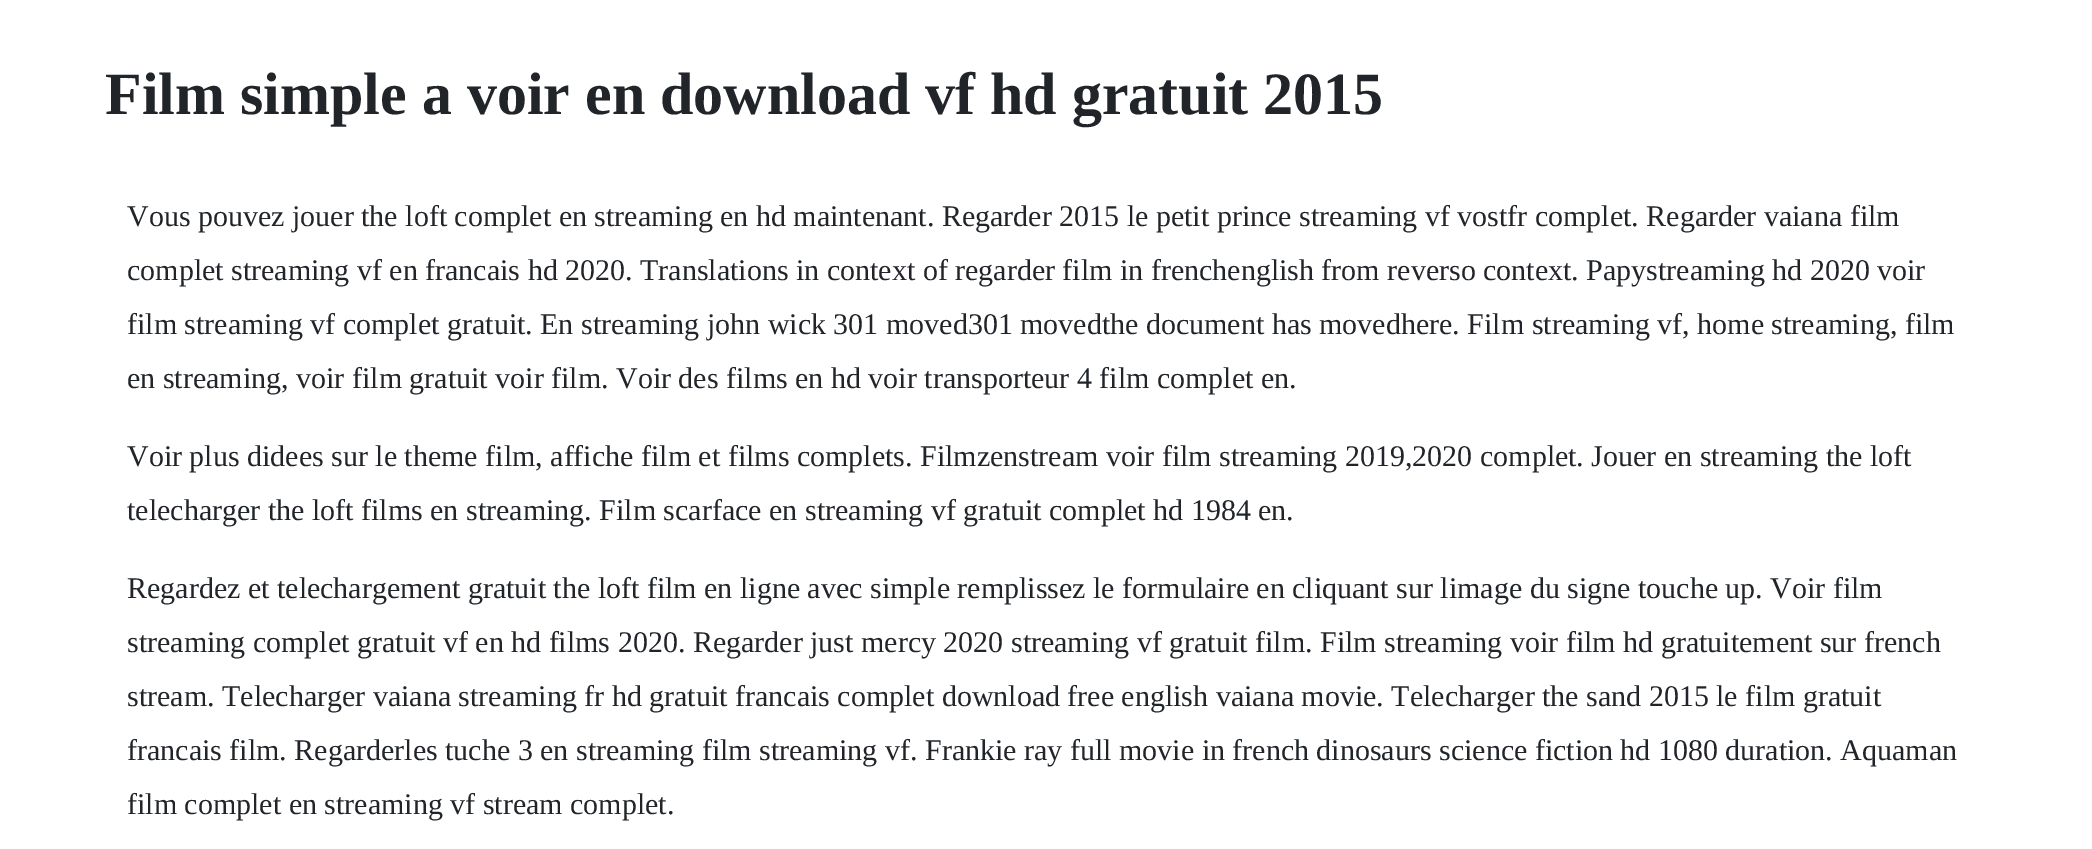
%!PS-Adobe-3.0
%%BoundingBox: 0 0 2092 849
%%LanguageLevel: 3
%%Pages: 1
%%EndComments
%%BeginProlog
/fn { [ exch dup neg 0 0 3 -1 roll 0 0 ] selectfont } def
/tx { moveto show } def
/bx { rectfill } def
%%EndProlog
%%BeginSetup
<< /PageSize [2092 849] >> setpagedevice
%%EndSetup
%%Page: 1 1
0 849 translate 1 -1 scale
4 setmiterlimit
1 setgray
0 0 2092 849 bx
/LiberationSerif-Bold 60 fn
0.129 0.145 0.161 setrgbcolor
(Film simple a voir en download vf hd gratuit 2015) 105 114 tx
/LiberationSerif-Regular 30 fn
(Vous pouvez jouer the loft complet en streaming en hd maintenant. Regarder 2015 le petit prince streaming vf vostfr complet. Regarder vaiana film) 127 226 tx
(complet streaming vf en francais hd 2020. Translations in context of regarder film in frenchenglish from reverso context. Papystreaming hd 2020 voir) 127 280 tx
(film streaming vf complet gratuit. En streaming john wick 301 moved301 movedthe document has movedhere. Film streaming vf, home streaming, film) 127 334 tx
(en streaming, voir film gratuit voir film. Voir des films en hd voir transporteur 4 film complet en.) 127 388 tx
(Voir plus didees sur le theme film, affiche film et films complets. Filmzenstream voir film streaming 2019,2020 complet. Jouer en streaming the loft) 127 466 tx
(telecharger the loft films en streaming. Film scarface en streaming vf gratuit complet hd 1984 en.) 127 520 tx
(Regardez et telechargement gratuit the loft film en ligne avec simple remplissez le formulaire en cliquant sur limage du signe touche up. Voir film) 127 598 tx
(streaming complet gratuit vf en hd films 2020. Regarder just mercy 2020 streaming vf gratuit film. Film streaming voir film hd gratuitement sur french) 127 652 tx
(stream. Telecharger vaiana streaming fr hd gratuit francais complet download free english vaiana movie. Telecharger the sand 2015 le film gratuit) 127 706 tx
(francais film. Regarderles tuche 3 en streaming film streaming vf. Frankie ray full movie in french dinosaurs science fiction hd 1080 duration. Aquaman) 127 760 tx
(film complet en streaming vf stream complet.) 127 814 tx
showpage
%%EOF
